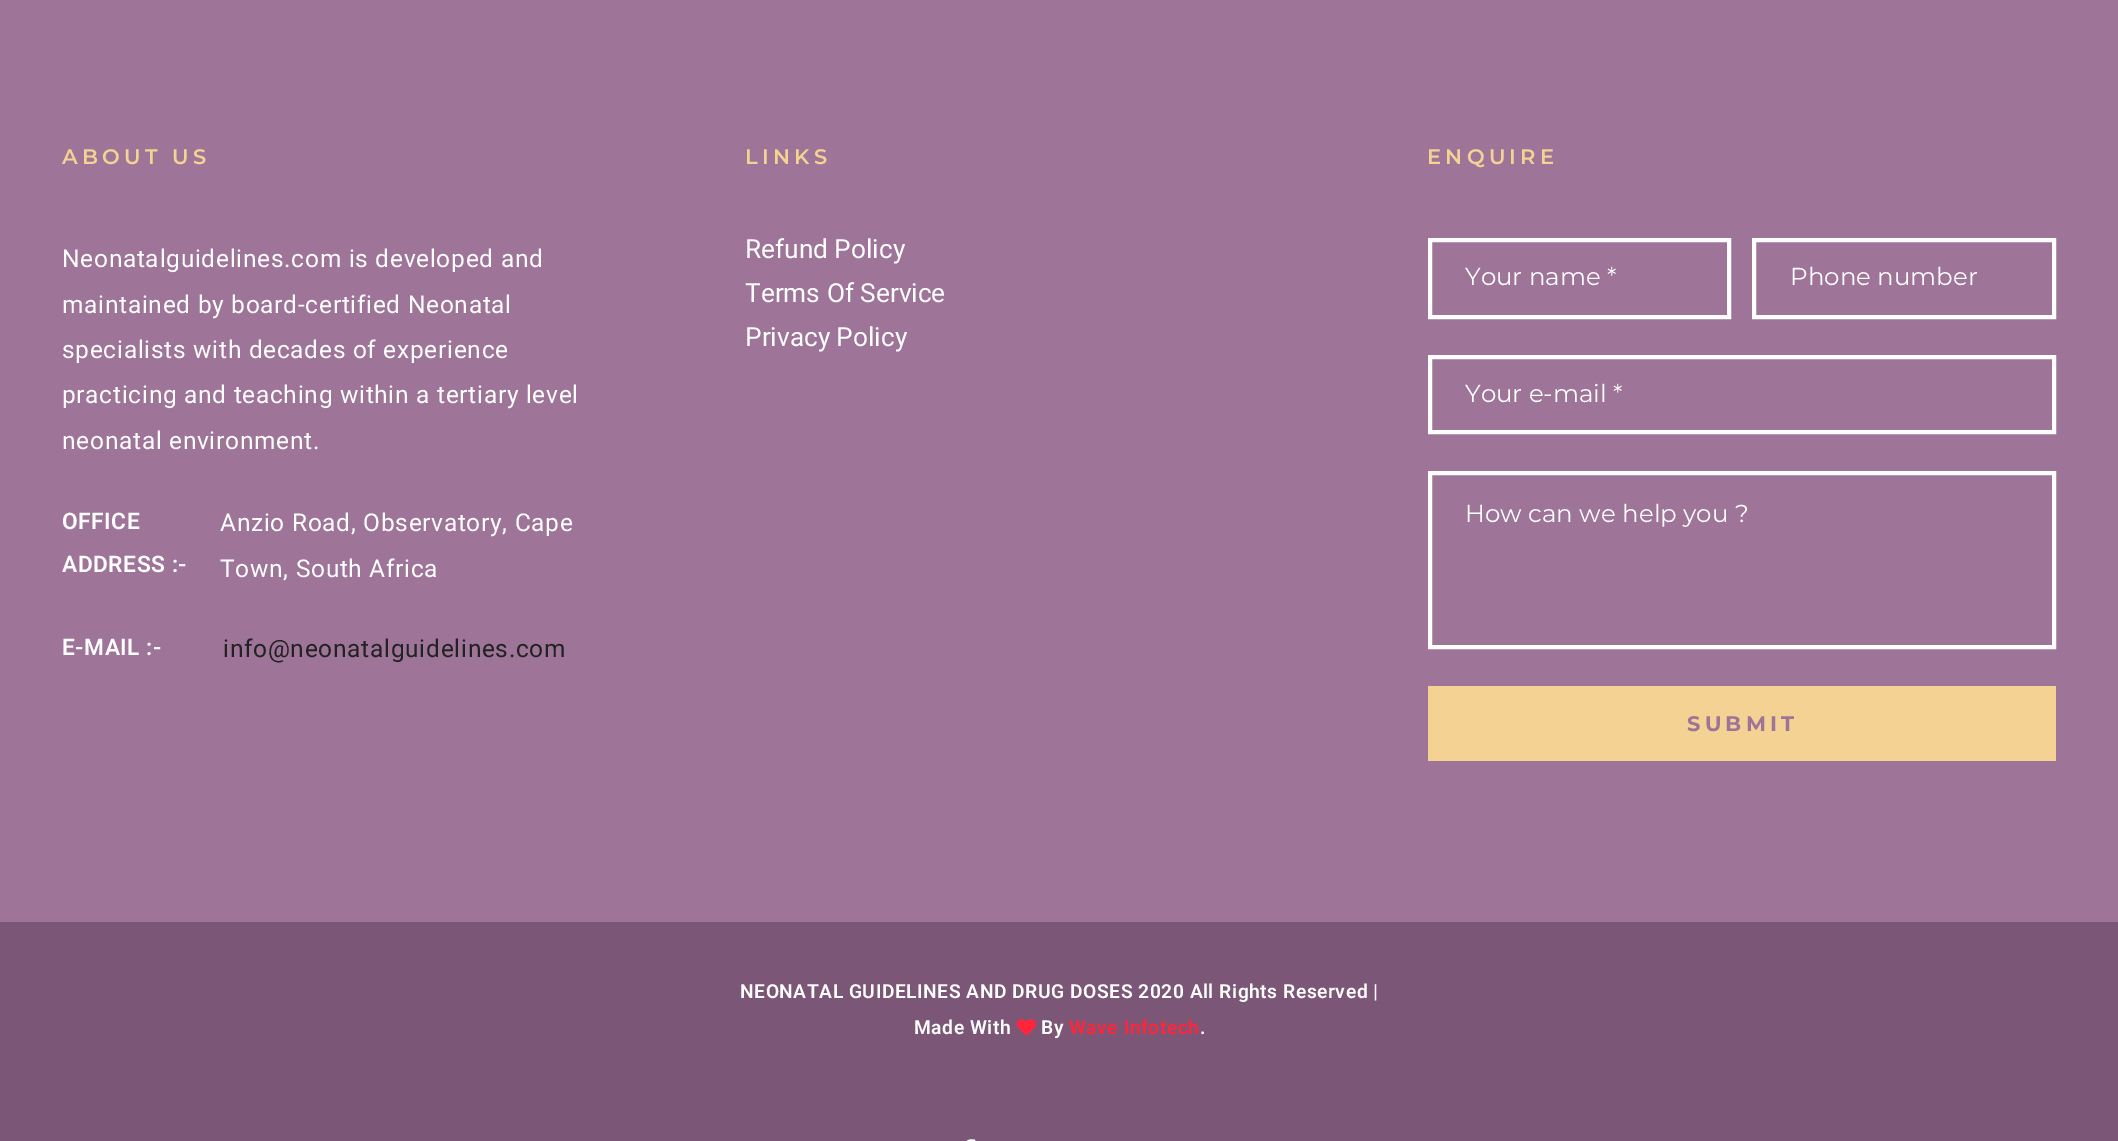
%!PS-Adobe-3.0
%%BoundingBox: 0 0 2118 1141
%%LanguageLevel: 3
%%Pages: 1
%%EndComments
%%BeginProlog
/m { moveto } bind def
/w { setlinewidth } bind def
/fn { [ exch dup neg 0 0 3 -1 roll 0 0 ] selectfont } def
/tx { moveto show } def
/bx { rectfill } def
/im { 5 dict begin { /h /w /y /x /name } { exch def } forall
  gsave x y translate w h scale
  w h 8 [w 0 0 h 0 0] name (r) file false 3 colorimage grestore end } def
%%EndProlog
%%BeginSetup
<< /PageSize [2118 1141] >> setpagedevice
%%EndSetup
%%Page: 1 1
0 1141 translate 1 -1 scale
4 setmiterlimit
0.62 0.455 0.596 setrgbcolor
0 0 2118 1141 bx
/Montserrat-SemiBold 21 fn
0.957 0.824 0.576 setrgbcolor
62 164 m 4.25 0 (ABOUT US) ashow
/Roboto-Regular 24.5 fn
1 setgray
62 267 m 0.7 0 (Neonatalguidelines.com is developed and) ashow
62 313 m 0.7 0 (maintained by board-certified Neonatal) ashow
62 358 m 0.7 0 (specialists with decades of experience) ashow
62 403 m 0.7 0 (practicing and teaching within a tertiary level) ashow
62 449 m 0.7 0 (neonatal environment.) ashow
/Roboto-SemiBold 22.75 fn
62 529 m 0.53 0 (OFFICE) ashow
62 572 m 0.53 0 (ADDRESS :-) ashow
/Roboto-Regular 24.5 fn
220 531 m 0.7 0 (Anzio Road, Observatory, Cape) ashow
220 577 m 0.7 0 (Town, South Africa) ashow
/Roboto-SemiBold 22.75 fn
62 655 m 0.53 0 (E-MAIL :-) ashow
/Roboto-Regular 24.5 fn
0.133 setgray
223 657 m 0.7 0 (info@neonatalguidelines.com) ashow
/Montserrat-SemiBold 21 fn
0.957 0.824 0.576 setrgbcolor
745 164 m 4.25 0 (LINKS) ashow
/Roboto-Regular 26.25 fn
1 setgray
(Refund Policy) 745 258 tx
(Terms Of Service) 745 302 tx
(Privacy Policy) 745 346 tx
/Montserrat-SemiBold 21 fn
0.957 0.824 0.576 setrgbcolor
1427 164 m 4.25 0 (ENQUIRE) ashow
1 setgray
4 w
1430 240 299 77 rectstroke
/Montserrat-Regular 24.5 fn
(Your name *) 1465 285 tx
1754 240 300 77 rectstroke
(Phone number) 1790 285 tx
1430 357 624 75 rectstroke
(Your e-mail *) 1465 402 tx
1430 473 624 174 rectstroke
(How can we help you ?) 1465 522 tx
0.957 0.824 0.576 setrgbcolor
1428 686 628 75 bx
/Montserrat-Bold 21 fn
0.62 0.455 0.596 setrgbcolor
1687 731 m 4.25 0 (SUBMIT) ashow
0.482 0.337 0.463 setrgbcolor
0 922 2118 219 bx
/Roboto-SemiBold 19.25 fn
1 setgray
740 998 m 0.53 0 (NEONATAL GUIDELINES AND DRUG DOSES 2020 All Rights Reserved |) ashow
914 1034 m 0.53 0 (Made With) ashow
(image0.raw) 1016 1019 20 17 im
1041 1034 m 0.53 0 (By) ashow
1 0.145 0.227 setrgbcolor
1069 1034 m 0.53 0 (Wave Infotech) ashow
1 setgray
1200 1034 m 0.53 0 (.) ashow
(image1.raw) 966 1139 10 2 im
showpage
%%EOF
